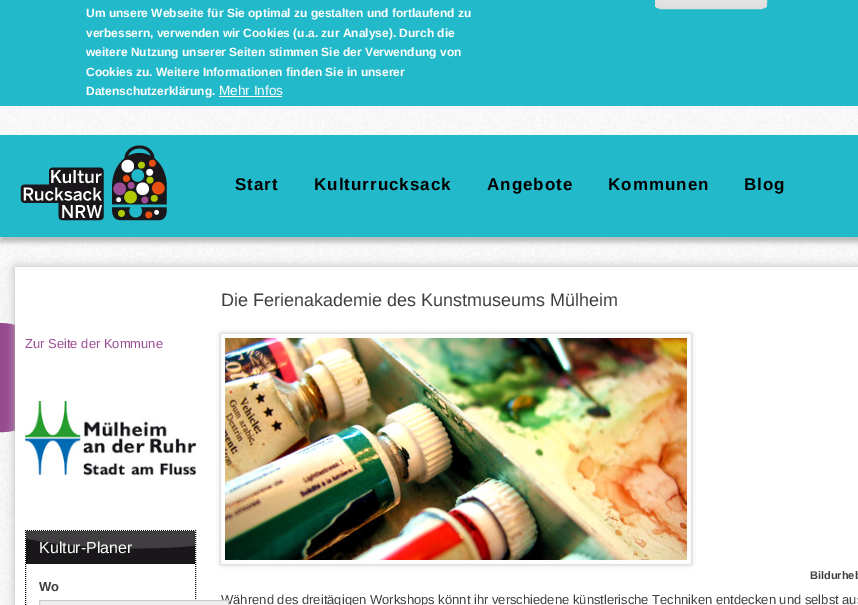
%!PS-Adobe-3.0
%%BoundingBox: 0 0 858 605
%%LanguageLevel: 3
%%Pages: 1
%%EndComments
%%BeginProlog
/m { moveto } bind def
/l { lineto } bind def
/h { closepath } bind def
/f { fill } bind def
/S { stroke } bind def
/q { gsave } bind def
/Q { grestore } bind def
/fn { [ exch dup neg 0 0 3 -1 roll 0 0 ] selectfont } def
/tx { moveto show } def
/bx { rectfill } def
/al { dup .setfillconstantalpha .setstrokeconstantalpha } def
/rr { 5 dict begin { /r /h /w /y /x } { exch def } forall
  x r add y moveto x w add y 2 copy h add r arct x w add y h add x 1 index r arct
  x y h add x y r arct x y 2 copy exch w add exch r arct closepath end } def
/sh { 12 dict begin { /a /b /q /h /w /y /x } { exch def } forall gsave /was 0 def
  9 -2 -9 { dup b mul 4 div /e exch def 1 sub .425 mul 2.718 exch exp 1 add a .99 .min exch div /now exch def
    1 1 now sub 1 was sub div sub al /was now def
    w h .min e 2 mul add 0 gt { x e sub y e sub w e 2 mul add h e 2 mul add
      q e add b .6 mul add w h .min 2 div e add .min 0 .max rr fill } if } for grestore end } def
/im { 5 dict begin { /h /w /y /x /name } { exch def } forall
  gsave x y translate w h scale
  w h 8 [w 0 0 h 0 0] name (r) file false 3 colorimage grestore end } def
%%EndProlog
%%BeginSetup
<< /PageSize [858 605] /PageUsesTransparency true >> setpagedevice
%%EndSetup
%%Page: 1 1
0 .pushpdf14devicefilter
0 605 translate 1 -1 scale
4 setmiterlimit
1 setgray
0 0 858 605 bx
(image0.raw) 0 106 858 161 im
0.133 0.725 0.792 setrgbcolor
0 0 858 106 bx
q
655 -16 112 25 6 rr clip newpath
q 655 0 m 767 0 l 767 8 l 655 8 l h clip newpath
<< /ShadingType 2 /ColorSpace /DeviceRGB /Coords [711 -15 711 8] /Extend [true true] /Function << /FunctionType 3 /Domain [0 1] /Functions [<< /FunctionType 2 /Domain [0 1] /C0 [0.929 0.929 0.929] /C1 [0.929 0.929 0.929] /N 1 >> << /FunctionType 2 /Domain [0 1] /C0 [0.929 0.929 0.929] /C1 [0.875 0.875 0.875] /N 1 >>] /Bounds [0.05] /Encode [0 1 0 1] >> >> shfill Q
Q
0.863 setgray
655.5 -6.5 111 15 5.5 rr S
/LiberationSans-Bold 12 fn
1 setgray
(Um unsere Webseite für Sie optimal zu gestalten und fortlaufend zu) 86 17 tx
(verbessern, verwenden wir Cookies \(u.a. zur Analyse\). Durch die) 86 37 tx
(weitere Nutzung unserer Seiten stimmen Sie der Verwendung von) 86 56 tx
(Cookies zu. Weitere Informationen finden Sie in unserer) 86 76 tx
(Datenschutzerklärung.) 86 95 tx
/LiberationSans-Regular 13.5 fn
(Mehr Infos) 219 95 tx
219 96 63 1 bx
0.725 0.722 0.725 setrgbcolor
0 140 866 102 0 2.5 1 sh
0.133 0.725 0.792 setrgbcolor
0 135 858 102 bx
(image1.raw) 20 145 147 76 im
/LiberationSans-Bold 17 fn
0 setgray
235 190 m 1 0 (Start) ashow
314 190 m 1 0 (Kulturrucksack) ashow
487 190 m 1 0 (Angebote) ashow
608 190 m 1 0 (Kommunen) ashow
744 190 m 1 0 (Blog) ashow
(image2.raw) 0 267 15 338 im
0.725 0.722 0.725 setrgbcolor
15 267 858 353 0 5 1 sh
1 setgray
15 267 843 338 bx
/LiberationSans-Regular 13 fn
0.616 0.298 0.58 setrgbcolor
(Zur Seite der Kommune) 25 348 tx
(image3.raw) 25 401 171 75 im
0 setgray
[1 1] 0 setdash
25 530.5 m 196 530.5 l S
195.5 530 m 195.5 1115 l S
25.5 530 m 25.5 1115 l S
(image4.raw) 26 531 169 33 im
/LiberationSans-Regular 16 fn
1 setgray
(Kultur-Planer) 39 553 tx
/LiberationSans-Bold 13 fn
0.255 0.243 0.255 setrgbcolor
(Wo) 39 591 tx
/LiberationSans-Regular 13 fn
(Während des dreitägigen Workshops könnt ihr verschiedene künstlerische Techniken entdecken und selbst aus) 221 604 tx
0.937 setgray
39.5 600.5 m 228.5 600.5 l 228.5 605.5 l 39.5 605.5 l h q f Q
0.8 setgray
[] 0 setdash
S
/LiberationSans-Regular 18 fn
0.255 0.243 0.255 setrgbcolor
(Die Ferienakademie des Kunstmuseums Mülheim) 221 306 tx
0.725 0.722 0.725 setrgbcolor
221 334 470 230 0 2.5 1 sh
(image5.raw) 221 334 470 230 im
/LiberationSans-Bold 11 fn
0.255 0.243 0.255 setrgbcolor
(Bildurheb) 810 579 tx
.poppdf14devicefilter showpage
%%EOF
